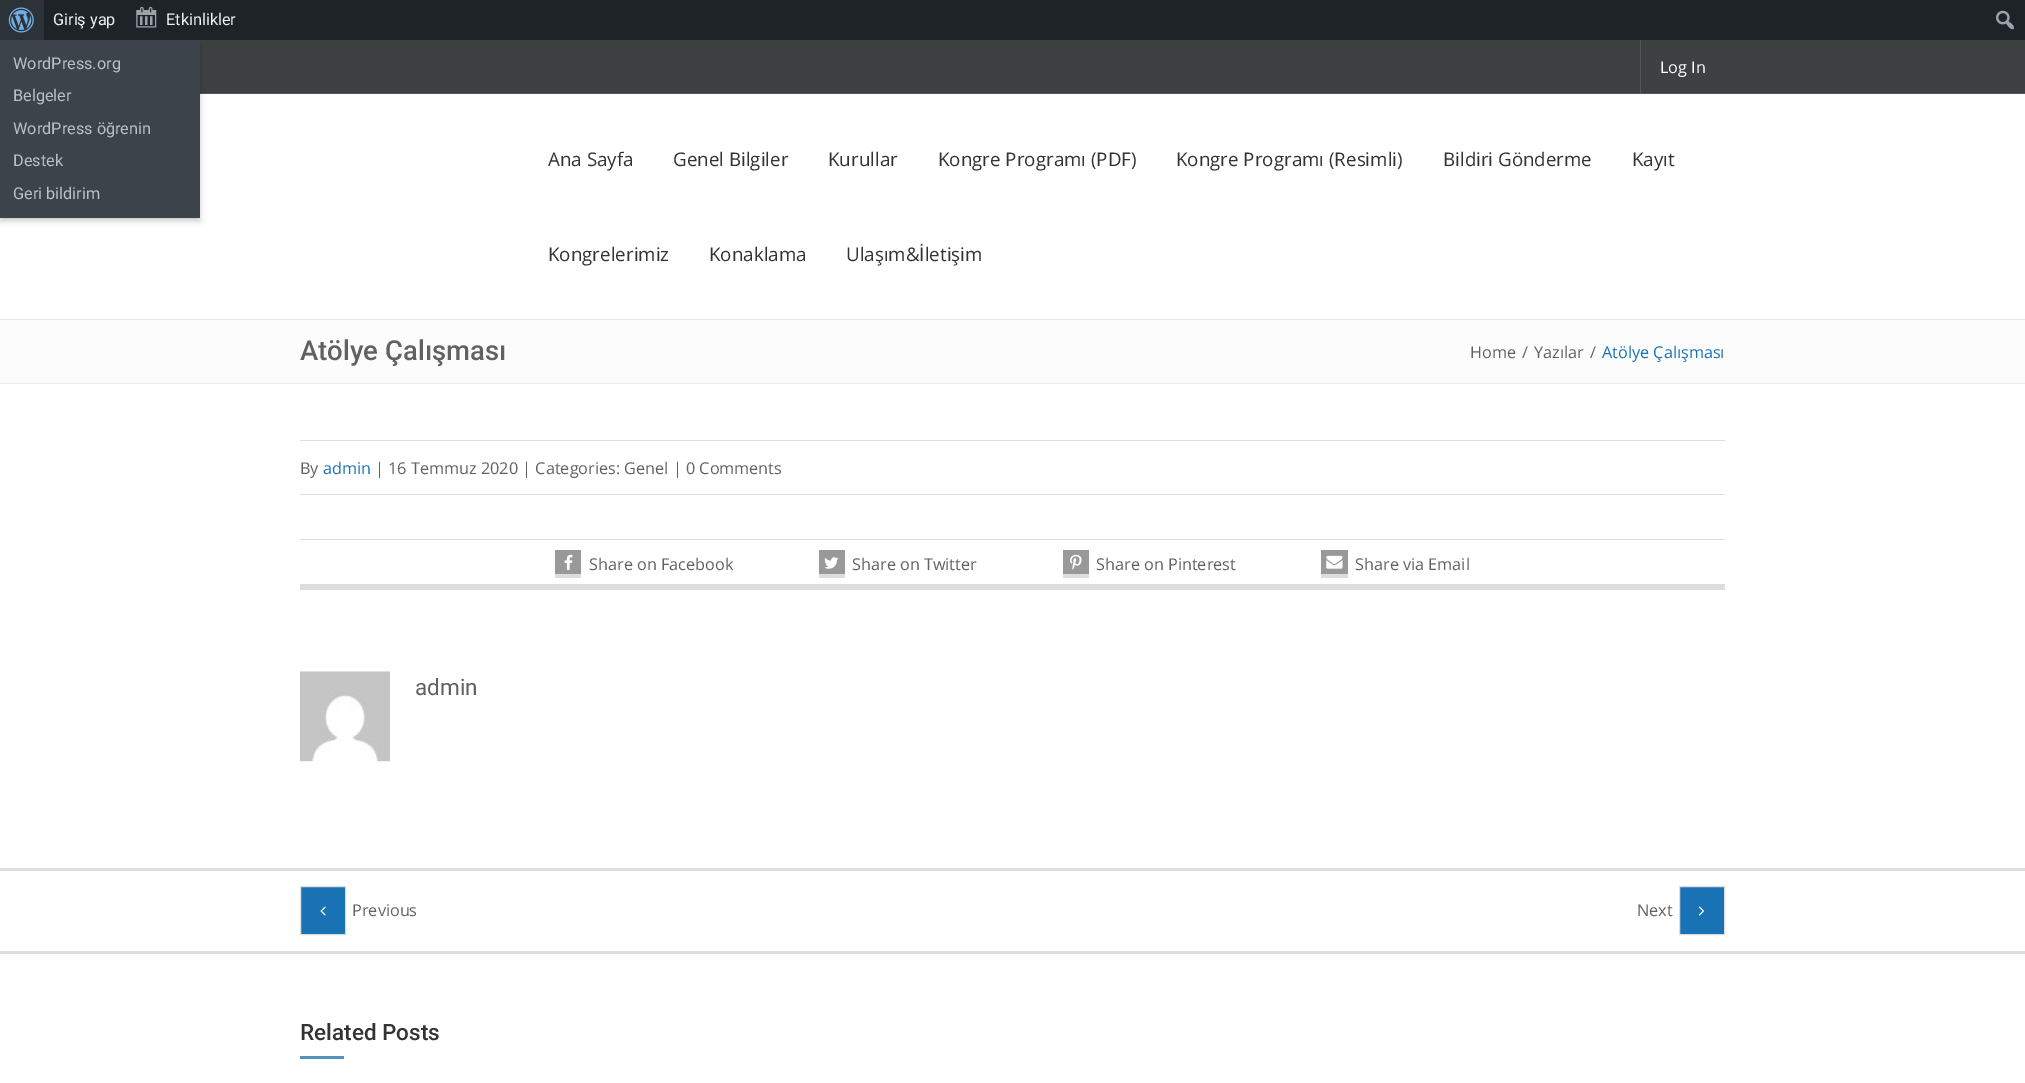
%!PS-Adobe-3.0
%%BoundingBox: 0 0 2025 1083
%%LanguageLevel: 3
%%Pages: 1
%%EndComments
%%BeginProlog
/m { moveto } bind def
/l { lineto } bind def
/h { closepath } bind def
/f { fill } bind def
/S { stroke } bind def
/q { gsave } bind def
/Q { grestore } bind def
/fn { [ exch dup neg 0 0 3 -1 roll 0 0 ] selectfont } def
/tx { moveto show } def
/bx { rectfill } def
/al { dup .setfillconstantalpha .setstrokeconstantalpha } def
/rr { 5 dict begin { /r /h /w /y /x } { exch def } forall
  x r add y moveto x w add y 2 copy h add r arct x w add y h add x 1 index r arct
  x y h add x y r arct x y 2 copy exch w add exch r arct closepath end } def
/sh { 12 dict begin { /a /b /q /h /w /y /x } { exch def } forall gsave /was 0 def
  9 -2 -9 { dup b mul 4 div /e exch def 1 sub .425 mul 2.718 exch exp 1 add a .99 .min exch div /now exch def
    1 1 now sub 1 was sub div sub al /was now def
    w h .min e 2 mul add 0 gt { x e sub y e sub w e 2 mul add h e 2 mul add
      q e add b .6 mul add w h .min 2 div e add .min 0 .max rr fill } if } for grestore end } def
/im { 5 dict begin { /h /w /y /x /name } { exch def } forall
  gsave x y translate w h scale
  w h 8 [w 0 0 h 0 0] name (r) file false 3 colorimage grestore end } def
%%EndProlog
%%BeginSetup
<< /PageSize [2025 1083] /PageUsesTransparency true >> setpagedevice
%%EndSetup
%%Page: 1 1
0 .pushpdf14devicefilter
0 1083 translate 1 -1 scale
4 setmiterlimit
1 setgray
0 0 2025 1083 bx
0.114 0.137 0.153 setrgbcolor
44 0 1981 40 bx
/Roboto-Regular 16.25 fn
0.941 0.941 0.945 setrgbcolor
(Giriş yap) 53 25 tx
(image0.raw) 136 6 21 22 im
(Etkinlikler) 166 25 tx
0.173 0.2 0.22 setrgbcolor
0 0 44 40 bx
(image1.raw) 8 7 26 26 im
0.243 0.255 0.259 setrgbcolor
200 40 1825 53 bx
0.333 0.337 0.341 setrgbcolor
200 93 1825 1 bx
0 setgray
0 44 200 177 0 3 0.2 sh
0.235 0.263 0.29 setrgbcolor
0 40 200 178 bx
0.729 0.753 0.78 setrgbcolor
(WordPress.org) 13 69 tx
(Belgeler) 13 101 tx
(WordPress öğrenin) 13 134 tx
(Destek) 13 166 tx
(Geri bildirim) 13 199 tx
(image2.raw) 1996 10 18 20 im
0.333 0.337 0.341 setrgbcolor
1640 40 1 53 bx
/OpenSans-Regular 16.25 fn
1 setgray
(Log In) 1660 73 tx
0.878 0.929 0.929 setrgbcolor
0 319 2025 1 bx
/OpenSans-Regular 18.75 fn
0.2 setgray
(Ana Sayfa) 548 166 tx
(Genel Bilgiler) 673 166 tx
(Kurullar) 828 166 tx
(Kongre Programı \(PDF\)) 938 166 tx
(Kongre Programı \(Resimli\)) 1176 166 tx
(Bildiri Gönderme) 1443 166 tx
(Kayıt) 1632 166 tx
(Kongrelerimiz) 548 261 tx
(Konaklama) 709 261 tx
(Ulaşım&İletişim) 846 261 tx
0.988 setgray
0 320 2025 63 bx
0.878 0.929 0.929 setrgbcolor
0 383 2025 1 bx
/Roboto-Medium 27.5 fn
0.38 setgray
(Atölye Çalışması) 300 360 tx
/OpenSans-Regular 16.25 fn
(Home) 1470 358 tx
(/) 1522 358 tx
(Yazılar) 1534 358 tx
(/) 1590 358 tx
0.098 0.447 0.706 setrgbcolor
(Atölye Çalışması) 1602 358 tx
0.867 setgray
300 440 1425 1 bx
300 494 1425 1 bx
0.38 setgray
(By) 300 474 tx
0.098 0.447 0.706 setrgbcolor
(admin) 323 474 tx
0.38 setgray
(| 16 Temmuz 2020 | Categories: Genel | 0 Comments) 375 474 tx
0.867 setgray
300 539 1425 1 bx
300 584 1425 6 bx
0.6 setgray
555 550 26 24 bx
0.867 setgray
555 574 26 4 bx
(image3.raw) 564 554 9 16 im
0.38 setgray
(Share on Facebook) 589 570 tx
0.6 setgray
819 550 26 24 bx
0.867 setgray
819 574 26 4 bx
(image4.raw) 824 557 15 12 im
0.38 setgray
(Share on Twitter) 852 570 tx
0.6 setgray
1063 550 26 24 bx
0.867 setgray
1063 574 26 4 bx
(image5.raw) 1070 554 12 16 im
0.38 setgray
(Share on Pinterest) 1096 570 tx
0.6 setgray
1321 550 27 24 bx
0.867 setgray
1321 574 27 4 bx
(image6.raw) 1326 555 17 14 im
0.38 setgray
(Share via Email) 1355 570 tx
(image7.raw) 300 671 90 91 im
/Roboto-Regular 22.5 fn
(admin) 415 695 tx
0.867 setgray
0 868 2025 3 bx
0 951 2025 3 bx
0.098 0.447 0.706 setrgbcolor
300.5 886.5 m 345.5 886.5 l 345.5 934.5 l 300.5 934.5 l h q f Q
0.867 setgray
S
(image8.raw) 320 906 6 10 im
/OpenSans-Regular 16.25 fn
0.38 setgray
(Previous) 352 916 tx
(Next) 1637 916 tx
0.098 0.447 0.706 setrgbcolor
1679.5 886.5 m 1724.5 886.5 l 1724.5 934.5 l 1679.5 934.5 l h q f Q
0.867 setgray
S
(image9.raw) 1698 906 7 10 im
/Roboto-Medium 22.5 fn
0.2 setgray
(Related Posts) 300 1040 tx
0.329 0.576 0.753 setrgbcolor
300 1056 44 3 bx
.poppdf14devicefilter showpage
%%EOF
